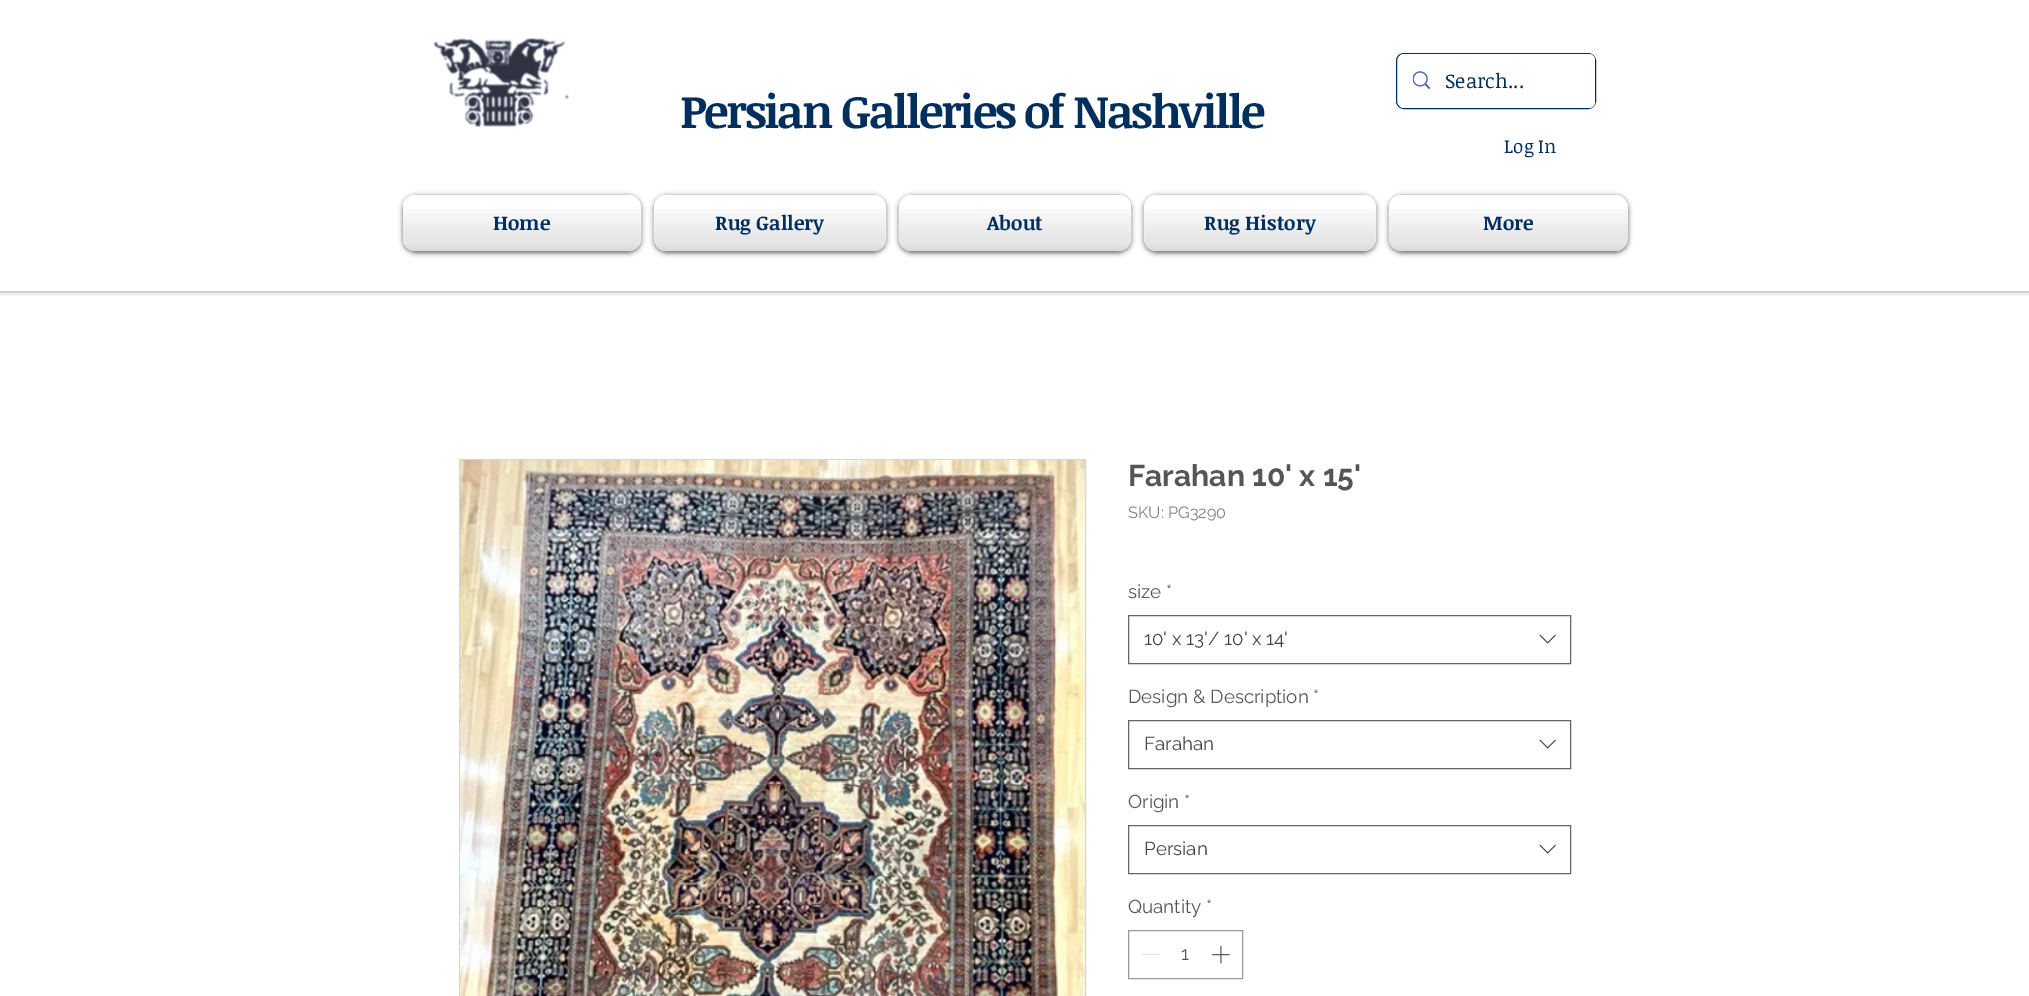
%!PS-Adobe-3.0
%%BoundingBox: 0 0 2029 996
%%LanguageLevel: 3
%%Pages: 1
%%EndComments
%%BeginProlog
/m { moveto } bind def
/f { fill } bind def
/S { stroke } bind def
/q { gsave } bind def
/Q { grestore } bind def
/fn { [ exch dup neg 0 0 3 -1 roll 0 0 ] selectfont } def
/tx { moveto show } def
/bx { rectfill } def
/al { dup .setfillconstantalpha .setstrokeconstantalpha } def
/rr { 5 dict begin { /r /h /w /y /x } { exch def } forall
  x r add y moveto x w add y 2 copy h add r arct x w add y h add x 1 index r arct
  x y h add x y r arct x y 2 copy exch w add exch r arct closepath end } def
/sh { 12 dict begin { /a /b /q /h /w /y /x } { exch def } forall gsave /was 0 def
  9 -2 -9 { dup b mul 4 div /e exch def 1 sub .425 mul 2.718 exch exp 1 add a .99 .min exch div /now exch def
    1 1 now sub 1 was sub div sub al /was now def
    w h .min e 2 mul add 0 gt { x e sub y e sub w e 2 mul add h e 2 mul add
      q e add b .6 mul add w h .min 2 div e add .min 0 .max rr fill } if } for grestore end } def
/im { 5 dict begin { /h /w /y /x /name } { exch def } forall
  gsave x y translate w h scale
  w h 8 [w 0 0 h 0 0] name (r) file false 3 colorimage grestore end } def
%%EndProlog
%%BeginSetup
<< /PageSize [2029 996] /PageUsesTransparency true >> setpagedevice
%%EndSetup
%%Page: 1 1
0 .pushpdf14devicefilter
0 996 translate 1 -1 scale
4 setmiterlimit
1 setgray
0 0 2029 996 bx
q
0 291 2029 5 rectclip
0 setgray
0 0 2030 291 0 3 0.5 sh
Q
(image0.raw) 433 38 137 90 im
0 0.18 0.365 setrgbcolor
1396.5 53.5 199 55 7.5 rr S
1 setgray
1398 54 197 54 6 rr f
(image1.raw) 1413 71 17 19 im
/NoticiaText-Regular 20 fn
0 0.18 0.365 setrgbcolor
(Search...) 1445 88 tx
/NoticiaText-Bold 46.25 fn
680 128 m -2.3 0 (Persian Galleries of Nashville) ashow
/NoticiaText-Regular 18.75 fn
(Log In) 1504 153 tx
0 setgray
403 196 238 57 13 2.5 0.6 sh
1 setgray
403 195 238 56 13 rr f
(image2.raw) 403 195 238 9 im
(image3.raw) 403 209 239 42 im
/NoticiaText-Bold 20 fn
0 0.18 0.365 setrgbcolor
(Home) 493 230 tx
0 setgray
654 196 232 57 13 2.5 0.6 sh
1 setgray
654 195 232 56 13 rr f
(image4.raw) 654 195 232 9 im
(image5.raw) 653 209 234 42 im
0 0.18 0.365 setrgbcolor
(Rug Gallery) 715 230 tx
0 setgray
899 196 232 57 13 2.5 0.6 sh
1 setgray
899 195 232 56 13 rr f
(image6.raw) 899 195 232 9 im
(image5.raw) 898 209 234 42 im
0 0.18 0.365 setrgbcolor
(About) 987 230 tx
0 setgray
1144 196 232 57 13 2.5 0.6 sh
1 setgray
1144 195 232 56 13 rr f
(image4.raw) 1144 195 232 9 im
(image5.raw) 1143 209 234 42 im
0 0.18 0.365 setrgbcolor
(Rug History) 1204 230 tx
0 setgray
1389 196 239 57 13 2.5 0.6 sh
1 setgray
1389 195 239 56 13 rr f
(image7.raw) 1389 195 239 10 im
(image8.raw) 1388 209 240 42 im
0 0.18 0.365 setrgbcolor
(More) 1483 230 tx
0.835 setgray
459.5 459.5 626 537 rectstroke
(image9.raw) 460 460 625 536 im
/Raleway-Bold 30 fn
0.333 setgray
(Farahan 10' x 15') 1128 486 tx
/Raleway-Regular 16.25 fn
0.502 setgray
(SKU: PG3290) 1128 518 tx
/Raleway-Regular 18.75 fn
0.333 setgray
(size *) 1128 598 tx
0.4 setgray
1128.5 615.5 442 48 rectstroke
0.267 setgray
(10' x 13'/ 10' x 14') 1144 645 tx
(image10.raw) 1539 634 17 10 im
0.333 setgray
(Design & Description *) 1128 703 tx
0.4 setgray
1128.5 720.5 442 48 rectstroke
0.267 setgray
(Farahan) 1144 750 tx
(image10.raw) 1539 739 17 10 im
0.333 setgray
(Origin *) 1128 808 tx
0.4 setgray
1128.5 825.5 442 48 rectstroke
0.267 setgray
(Persian) 1144 855 tx
(image10.raw) 1539 844 17 10 im
0.333 setgray
(Quantity *) 1128 913 tx
0.6 setgray
1128.5 930.5 114 48 rectstroke
0.89 setgray
1142 954 18 1 bx
0.333 setgray
(1) 1181 960 tx
(image11.raw) 1212 945 18 19 im
.poppdf14devicefilter showpage
%%EOF
